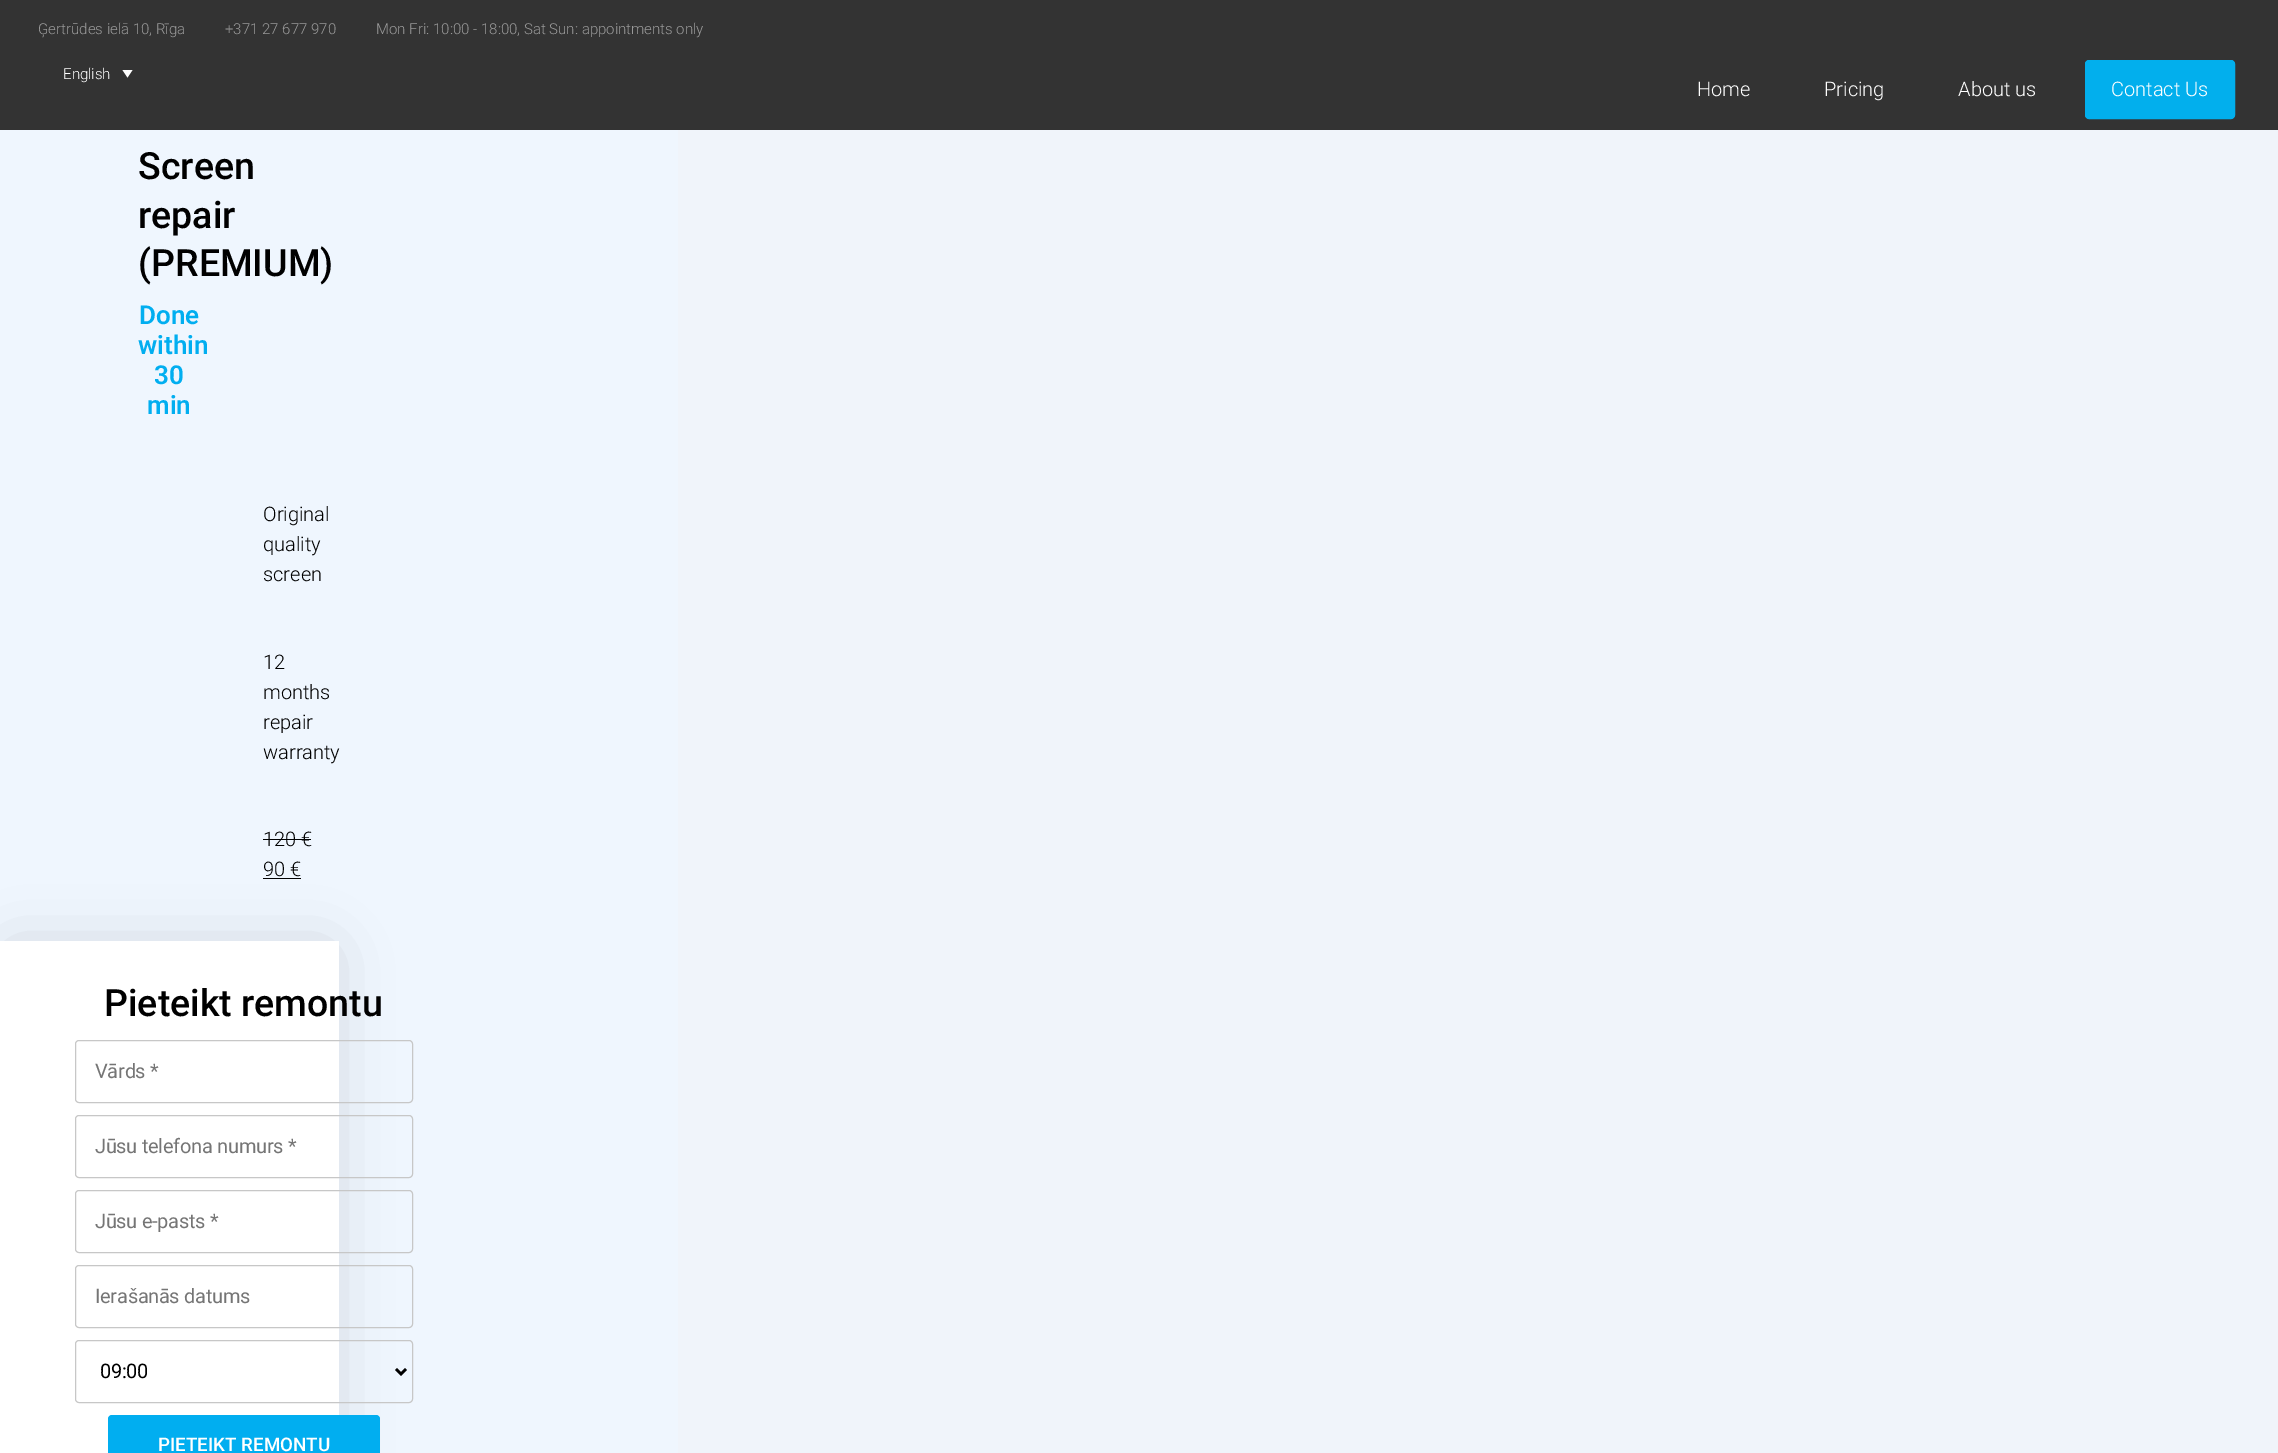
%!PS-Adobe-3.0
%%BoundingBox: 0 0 2278 1453
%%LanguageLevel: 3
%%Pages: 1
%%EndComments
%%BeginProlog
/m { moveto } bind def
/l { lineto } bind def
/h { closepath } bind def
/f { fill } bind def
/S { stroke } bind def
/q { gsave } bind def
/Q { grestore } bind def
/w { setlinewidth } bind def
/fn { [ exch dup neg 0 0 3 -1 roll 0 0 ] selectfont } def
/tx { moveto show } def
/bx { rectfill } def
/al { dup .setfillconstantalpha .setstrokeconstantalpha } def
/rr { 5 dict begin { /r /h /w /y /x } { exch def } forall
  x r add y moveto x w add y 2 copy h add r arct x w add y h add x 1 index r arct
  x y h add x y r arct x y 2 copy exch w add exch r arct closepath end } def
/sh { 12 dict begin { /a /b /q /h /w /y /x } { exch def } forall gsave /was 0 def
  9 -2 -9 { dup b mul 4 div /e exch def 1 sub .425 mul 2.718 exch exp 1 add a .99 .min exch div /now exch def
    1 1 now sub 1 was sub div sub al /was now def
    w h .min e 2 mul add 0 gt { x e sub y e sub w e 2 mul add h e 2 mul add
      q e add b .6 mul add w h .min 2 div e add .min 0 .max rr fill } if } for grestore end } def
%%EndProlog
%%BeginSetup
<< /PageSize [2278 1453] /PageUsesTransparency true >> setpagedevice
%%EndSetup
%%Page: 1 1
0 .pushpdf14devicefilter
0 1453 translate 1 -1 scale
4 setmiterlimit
0.941 0.957 0.98 setrgbcolor
0 0 2278 1453 bx
0.2 setgray
0 0 2278 130 bx
/Roboto-Light 15 fn
0.6 setgray
(Ģertrūdes ielā 10, Rīga) 38 34 tx
(+371 27 677 970) 225 34 tx
(Mon Fri: 10:00 - 18:00, Sat Sun: appointments only) 376 34 tx
1 setgray
(English) 63 79 tx
122.5 70 m 132.5 70 l 127.5 77.5 l h f
/Roboto-Light 20 fn
(Home) 1697 96 tx
(Pricing) 1824 96 tx
(About us) 1958 96 tx
0.008 0.686 0.929 setrgbcolor
2085.5 60.5 149 58 3.5 rr q f Q
S
1 setgray
(Contact Us) 2111 96 tx
0.937 0.965 0.996 setrgbcolor
0 130 678 1323 bx
/Roboto-Medium 37.5 fn
0 setgray
(Screen) 138 179 tx
(repair) 138 228 tx
(\(PREMIUM\)) 138 276 tx
/Roboto-SemiBold 26 fn
0.004 0.682 0.941 setrgbcolor
(Done) 139 324 tx
(within) 138 354 tx
(30) 154 384 tx
(min) 147 414 tx
/Roboto-Light 20 fn
0 setgray
(Original) 263 521 tx
(quality) 263 551 tx
(screen) 263 581 tx
(12) 263 669 tx
(months) 263 699 tx
(repair) 263 729 tx
(warranty) 263 759 tx
(120 €) 263 846 tx
263 839 48 1 bx
13 954 313 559 0 31 0.17 sh
(90 €) 263 876 tx
263 878 38 1 bx
1 setgray
0 941 339 512 bx
/Roboto-Medium 37.5 fn
0 setgray
(Pieteikt remontu) 104 1016 tx
0.78 setgray
75.5 1040.5 337 62 3.5 rr S
/Roboto-Regular 20 fn
0.459 setgray
95 1078 m -0.3 0 (Vārds *) ashow
0.78 setgray
75.5 1115.5 337 62 3.5 rr S
0.459 setgray
95 1153 m -0.3 0 (Jūsu telefona numurs *) ashow
0.78 setgray
75.5 1190.5 337 62 3.5 rr S
0.459 setgray
95 1228 m -0.3 0 (Jūsu e-pasts *) ashow
0.78 setgray
75.5 1265.5 337 62 3.5 rr S
0.459 setgray
95 1303 m -0.3 0 (Ierašanās datums) ashow
0.78 setgray
75.5 1340.5 337 62 3.5 rr S
0 setgray
2.5 w
396 1369 m 401 1374 l 406 1369 l S
100 1378 m -0.3 0 (09:00) ashow
0.004 0.682 0.941 setrgbcolor
108 1415 272 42 4 rr f
/Roboto-Medium 18.75 fn
1 setgray
(PIETEIKT REMONTU) 158 1451 tx
.poppdf14devicefilter showpage
%%EOF
